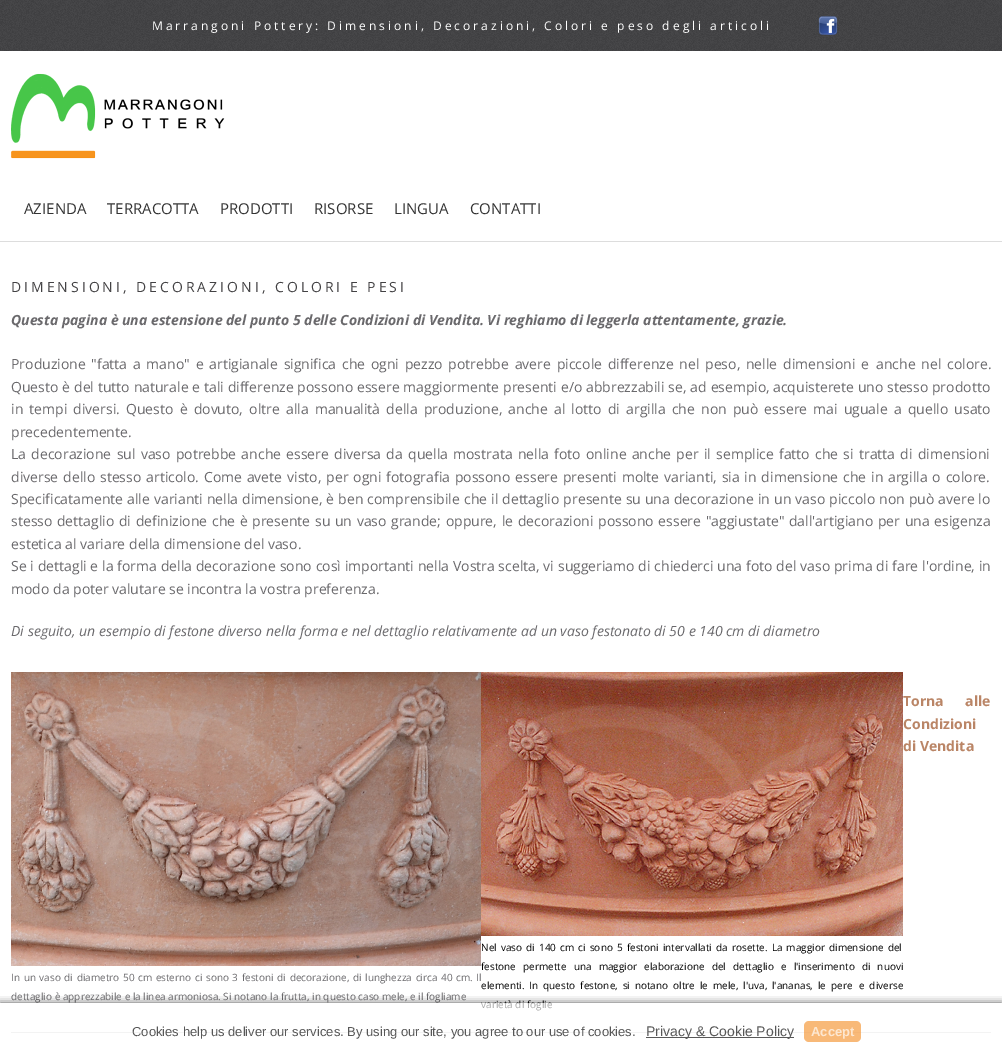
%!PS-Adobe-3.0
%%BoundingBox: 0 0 1002 1060
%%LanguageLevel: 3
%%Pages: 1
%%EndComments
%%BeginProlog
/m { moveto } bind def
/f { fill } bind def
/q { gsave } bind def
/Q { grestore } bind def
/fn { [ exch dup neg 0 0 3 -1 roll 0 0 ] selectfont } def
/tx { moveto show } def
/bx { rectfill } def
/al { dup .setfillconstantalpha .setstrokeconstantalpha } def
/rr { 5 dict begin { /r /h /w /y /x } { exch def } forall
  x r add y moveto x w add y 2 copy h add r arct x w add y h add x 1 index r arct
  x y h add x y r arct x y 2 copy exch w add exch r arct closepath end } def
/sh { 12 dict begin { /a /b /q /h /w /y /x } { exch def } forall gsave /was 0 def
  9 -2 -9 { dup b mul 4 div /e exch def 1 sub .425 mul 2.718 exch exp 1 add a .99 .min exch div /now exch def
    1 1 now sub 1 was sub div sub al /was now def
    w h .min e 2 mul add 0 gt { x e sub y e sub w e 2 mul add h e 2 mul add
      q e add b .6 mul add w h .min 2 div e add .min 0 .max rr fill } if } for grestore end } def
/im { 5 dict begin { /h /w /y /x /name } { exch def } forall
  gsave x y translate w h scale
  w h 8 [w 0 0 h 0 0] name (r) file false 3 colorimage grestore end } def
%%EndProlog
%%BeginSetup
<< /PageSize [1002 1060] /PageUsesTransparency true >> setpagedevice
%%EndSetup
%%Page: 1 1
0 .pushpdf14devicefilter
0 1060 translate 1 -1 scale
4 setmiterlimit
1 setgray
0 0 1002 1060 bx
(image0.raw) 0 0 1002 51 im
/OpenSans-Regular 12 fn
152 30 m 3 0 (Marrangoni Pottery: Dimensioni, Decorazioni, Colori e peso degli articoli) ashow
(image1.raw) 818 16 20 19 im
(image2.raw) 11 73 214 86 im
/OpenSans-Regular 15 fn
0.2 setgray
(AZIENDA) 24 214 tx
(TERRACOTTA) 107 214 tx
(PRODOTTI) 220 214 tx
(RISORSE) 314 214 tx
(LINGUA) 394 214 tx
(CONTATTI) 470 214 tx
0.867 setgray
0 241 1002 1 bx
/OpenSans-Regular 14 fn
0.263 0.259 0.267 setrgbcolor
11 292 m 3 0 (DIMENSIONI, DECORAZIONI, COLORI E PESI) ashow
/OpenSans-BoldItalic 14 fn
0.416 0.412 0.424 setrgbcolor
(Questa pagina è una estensione del punto 5 delle Condizioni di Vendita. Vi reghiamo di leggerla attentamente, grazie.) 11 325 tx
/OpenSans-Regular 14 fn
11 369 m 2.1 0 32 (Produzione "fatta a mano" e artigianale significa che ogni pezzo potrebbe avere piccole differenze nel peso, nelle dimensioni e) widthshow
876 369 m 2.1 0 32 (anche nel colore.) widthshow
11 392 m 0.2 0 32 (Questo è del tutto naturale e tali differenze possono essere maggiormente presenti e/o abbrezzabili se, ad esempio,) widthshow
(acquisterete uno stesso prodotto) 773 392 tx
11 414 m 2.5 0 32 (in tempi diversi. Questo è dovuto, oltre alla manualità della produzione, anche al lotto di argilla che) widthshow
701 414 m 2.5 0 32 (non può essere mai uguale a quello usato) widthshow
(precedentemente.) 11 437 tx
11 459 m 1.6 0 32 (La decorazione sul vaso potrebbe anche essere diversa da quella mostrata nella foto online anche per il semplice fatto che si tratta di dimensioni) widthshow
11 482 m 1.25 0 32 (diverse dello stesso articolo. Come avete visto, per ogni fotografia possono essere presenti molte varianti, sia in dimensione che in argilla o colore.) widthshow
11 504 m 0.4 0 32 (Specificatamente alle varianti nella dimensione, è ben comprensibile che il dettaglio presente su una decorazione in un vaso piccolo non può avere lo) widthshow
11 526 m 1 0 32 (stesso dettaglio di definizione che è presente su un vaso grande; oppure, le decorazioni) widthshow
598 526 m 1 0 32 (possono essere "aggiustate" dall'artigiano per una esigenza) widthshow
(estetica al variare della dimensione del vaso.) 11 549 tx
11 571 m 0.2 0 32 (Se i dettagli e la forma della decorazione sono così importanti nella Vostra scelta, vi suggeriamo di chiederci una foto del vaso prima di fare l'ordine, in) widthshow
(modo da poter valutare se incontra la vostra preferenza.) 11 594 tx
/OpenSans-Italic 14 fn
(Di seguito, un esempio di festone diverso nella forma e nel dettaglio relativamente ad un vaso festonato di 50 e 140 cm di diametro) 11 636 tx
/OpenSans-Bold 14 fn
0.729 0.522 0.4 setrgbcolor
903 706 m 18 0 32 (Torna alle) widthshow
(Condizioni) 903 729 tx
(di Vendita) 903 751 tx
(image3.raw) 11 672 470 294 im
/OpenSans-Regular 10 fn
0.416 0.412 0.424 setrgbcolor
11 981 m 1 0 32 (In un vaso di diametro 50 cm esterno ci sono 3 festoni di decorazione, di lunghezza circa 40 cm. Il) widthshow
(dettaglio è apprezzabile e la linea armoniosa. Si notano la frutta, in questo caso mele, e il fogliame) 11 1000 tx
(image4.raw) 481 672 422 264 im
0 setgray
481 951 m 1.5 0 32 (Nel vaso di 140 cm ci sono 5 festoni intervallati da rosette. La maggior dimensione del) widthshow
481 970 m 4.5 0 32 (festone permette una maggior elaborazione del dettaglio e l'inserimento di nuovi) widthshow
481 989 m 2.25 0 32 (elementi. In questo festone, si notano oltre le mele, l'uva, l'ananas, le pere) widthshow
859 989 m 2.25 0 32 (e diverse) widthshow
(varietà di foglie) 481 1008 tx
0.867 setgray
11 1032 980 1 bx
q
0 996 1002 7 rectclip
0 setgray
0 1003 1002 57 0 4 0.66 sh
Q
0.66 al
1 setgray
11 1003 980 30 bx
/LiberationSans-Regular 13 fn
1 al
0.341 setgray
(Cookies help us deliver our services. By using our site, you agree to our use of cookies.) 132 1036 tx
0.345 setgray
646 1037 148 1 bx
/LiberationSans-Regular 14 fn
0.341 setgray
(Privacy & Cookie Policy) 646 1036 tx
0.66 al
0.961 0.58 0.196 setrgbcolor
804 1021 57 21 5 rr f
/LiberationSans-Bold 13 fn
1 al
0.992 0.906 0.816 setrgbcolor
(Accept) 811 1036 tx
.poppdf14devicefilter showpage
%%EOF
